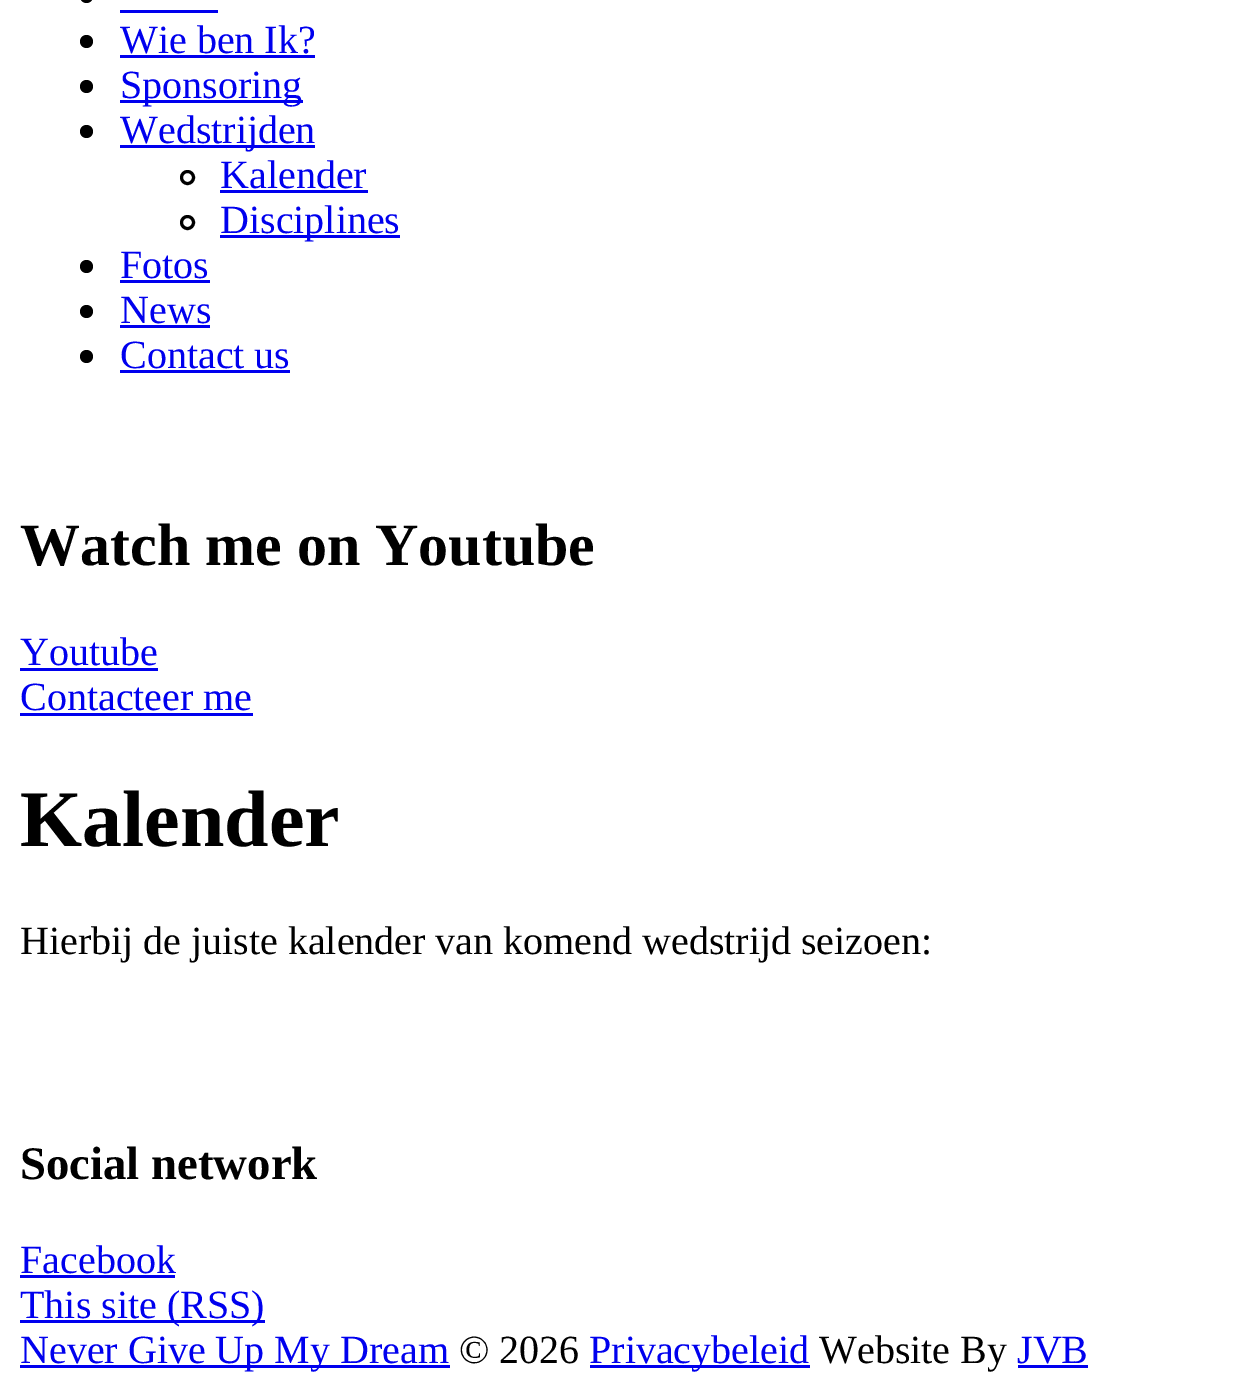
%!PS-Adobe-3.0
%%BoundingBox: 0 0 1240 1386
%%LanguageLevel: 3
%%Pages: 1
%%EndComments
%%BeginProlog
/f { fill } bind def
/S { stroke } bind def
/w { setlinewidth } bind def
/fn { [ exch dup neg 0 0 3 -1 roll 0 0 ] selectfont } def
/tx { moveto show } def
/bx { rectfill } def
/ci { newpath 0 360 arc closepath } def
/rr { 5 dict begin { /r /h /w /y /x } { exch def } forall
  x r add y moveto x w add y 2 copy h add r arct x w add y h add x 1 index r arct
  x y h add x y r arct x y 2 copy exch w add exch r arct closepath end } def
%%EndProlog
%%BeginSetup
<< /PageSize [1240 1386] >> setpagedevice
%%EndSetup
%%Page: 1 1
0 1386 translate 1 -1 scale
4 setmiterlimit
1 setgray
0 0 1240 1386 bx
0 setgray
80 -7 13 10 6.5 rr f
0 0 0.933 setrgbcolor
120 10 98 3 bx
0 setgray
86.5 41.5 6.5 ci f
/LiberationSerif-Regular 40 fn
0 0 0.933 setrgbcolor
(Wie ben Ik?) 120 53 tx
120 55 195 3 bx
0 setgray
86.5 86.5 6.5 ci f
0 0 0.933 setrgbcolor
120 100 183 3 bx
(Sponsoring) 120 98 tx
0 setgray
86.5 131.5 6.5 ci f
0 0 0.933 setrgbcolor
120 145 195 3 bx
(Wedstrijden) 120 143 tx
0 setgray
3 w
187.5 177.5 6 ci S
0 0 0.933 setrgbcolor
(Kalender) 220 188 tx
220 190 148 3 bx
0 setgray
187.5 222.5 6 ci S
0 0 0.933 setrgbcolor
220 235 180 3 bx
(Disciplines) 220 233 tx
0 setgray
86.5 266.5 6.5 ci f
0 0 0.933 setrgbcolor
(Fotos) 120 278 tx
120 280 90 3 bx
0 setgray
86.5 311.5 6.5 ci f
0 0 0.933 setrgbcolor
(News) 120 323 tx
120 325 90 3 bx
0 setgray
86.5 356.5 6.5 ci f
0 0 0.933 setrgbcolor
(Contact us) 120 368 tx
120 370 170 3 bx
/LiberationSerif-Bold 60 fn
0 setgray
(Watch me on Youtube) 20 565 tx
/LiberationSerif-Regular 40 fn
0 0 0.933 setrgbcolor
(Youtube) 20 665 tx
20 668 138 3 bx
(Contacteer me) 20 710 tx
20 713 233 3 bx
/LiberationSerif-Bold 80 fn
0 setgray
(Kalender) 20 846 tx
/LiberationSerif-Regular 40 fn
(Hierbij de juiste kalender van komend wedstrijd seizoen:) 20 954 tx
/LiberationSerif-Bold 46.75 fn
(Social network) 20 1179 tx
/LiberationSerif-Regular 40 fn
0 0 0.933 setrgbcolor
(Facebook) 20 1273 tx
20 1275 155 3 bx
20 1320 245 3 bx
(This site \(RSS\)) 20 1318 tx
20 1365 430 3 bx
(Never Give Up My Dream) 20 1363 tx
0 setgray
(© 2026) 459 1363 tx
0 0 0.933 setrgbcolor
590 1365 220 3 bx
(Privacybeleid) 589 1363 tx
0 setgray
(Website By) 819 1363 tx
0 0 0.933 setrgbcolor
(JVB) 1017 1363 tx
1018 1365 70 3 bx
showpage
%%EOF
